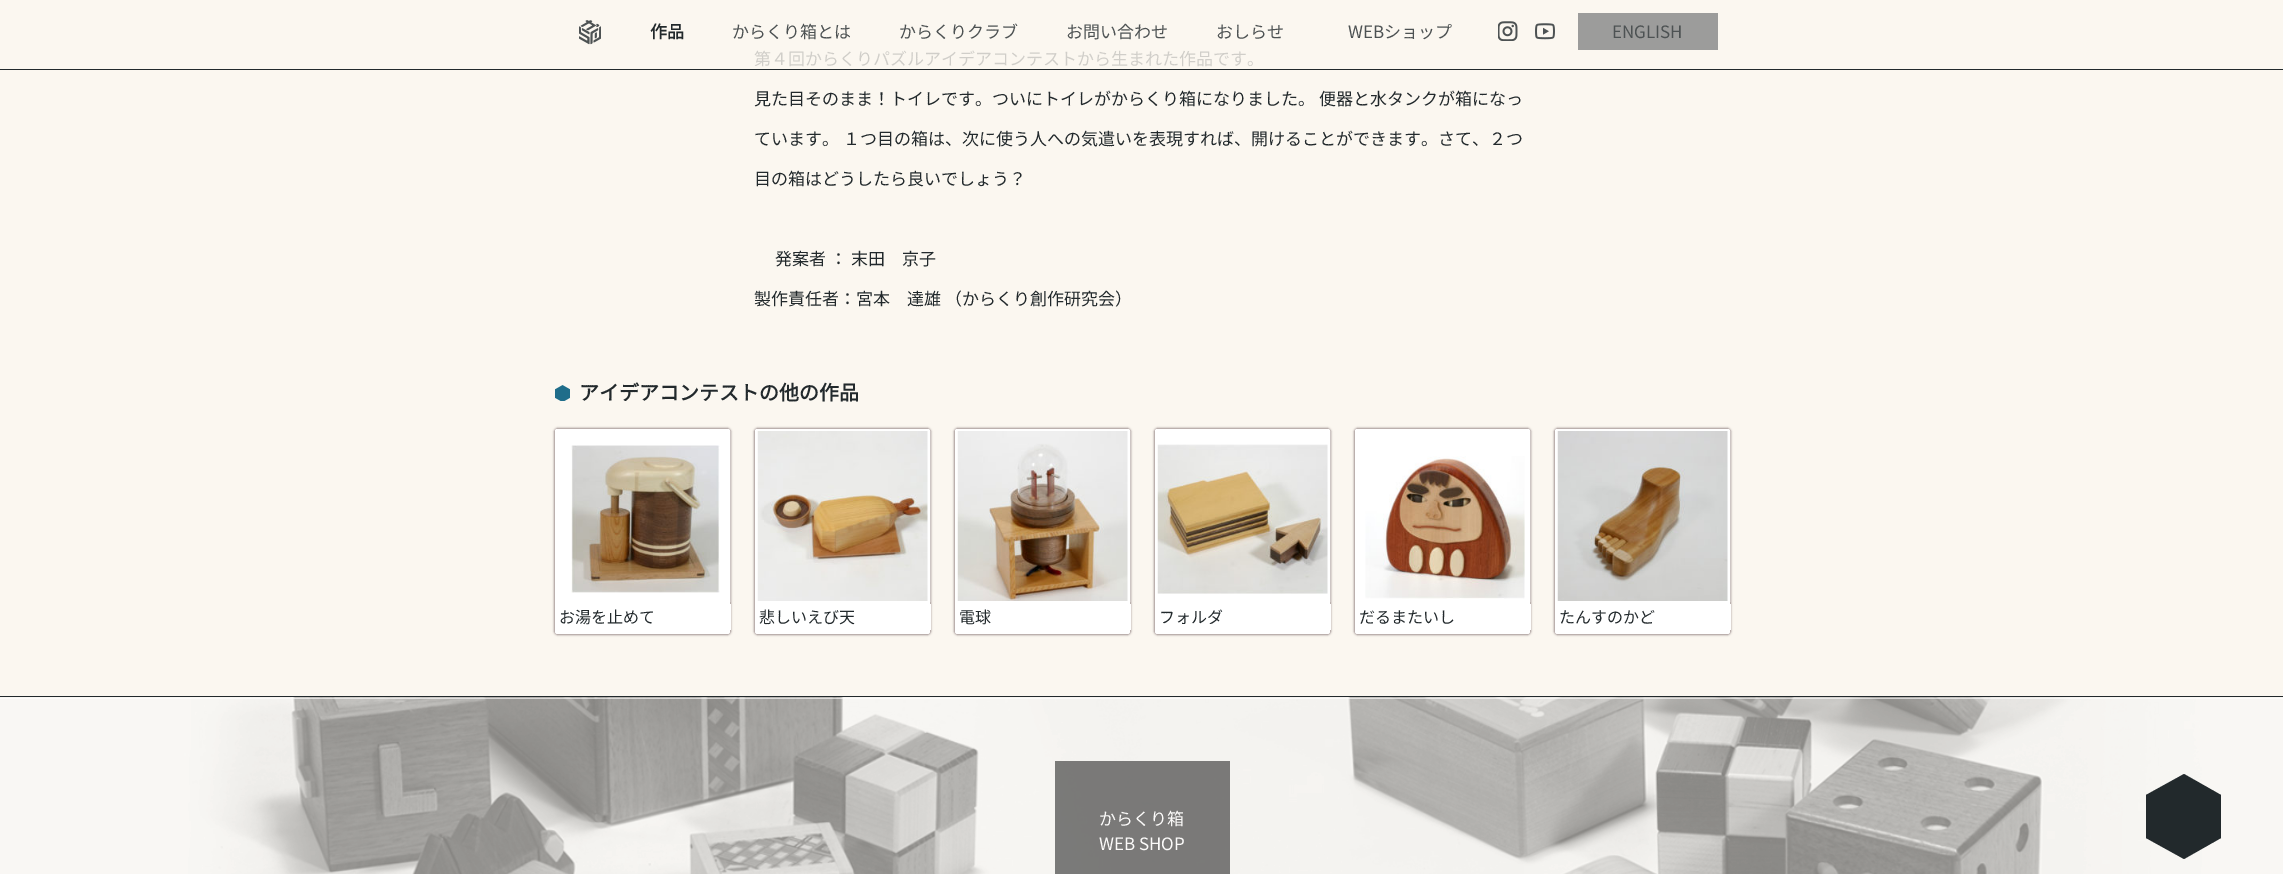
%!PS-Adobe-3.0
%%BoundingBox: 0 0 2283 874
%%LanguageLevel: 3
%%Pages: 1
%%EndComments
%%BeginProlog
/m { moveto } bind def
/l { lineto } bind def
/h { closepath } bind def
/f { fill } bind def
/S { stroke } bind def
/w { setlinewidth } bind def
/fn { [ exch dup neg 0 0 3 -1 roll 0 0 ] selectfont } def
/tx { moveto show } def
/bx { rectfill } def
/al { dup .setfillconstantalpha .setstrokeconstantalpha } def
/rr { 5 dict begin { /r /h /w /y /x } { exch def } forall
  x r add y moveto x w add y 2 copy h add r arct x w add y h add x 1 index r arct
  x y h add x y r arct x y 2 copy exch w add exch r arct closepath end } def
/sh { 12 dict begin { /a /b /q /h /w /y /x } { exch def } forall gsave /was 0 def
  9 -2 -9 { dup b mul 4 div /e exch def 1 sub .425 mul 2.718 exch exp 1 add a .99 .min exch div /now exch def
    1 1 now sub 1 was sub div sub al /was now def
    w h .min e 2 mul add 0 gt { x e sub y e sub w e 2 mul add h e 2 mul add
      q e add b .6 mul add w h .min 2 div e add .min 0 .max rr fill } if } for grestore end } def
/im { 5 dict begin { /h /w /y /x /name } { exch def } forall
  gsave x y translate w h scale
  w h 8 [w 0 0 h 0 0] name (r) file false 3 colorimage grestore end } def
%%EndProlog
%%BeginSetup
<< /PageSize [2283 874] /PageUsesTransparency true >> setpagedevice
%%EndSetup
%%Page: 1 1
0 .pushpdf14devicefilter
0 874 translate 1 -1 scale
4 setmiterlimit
0.984 0.969 0.941 setrgbcolor
0 0 2283 874 bx
0.133 0.161 0.173 setrgbcolor
0 69 2283 1 bx
(image0.raw) 579 20 22 25 im
/NotoSansJP-Bold 17 fn
(作品) 650 38 tx
/NotoSansJP-Thin 17 fn
0.302 0.322 0.325 setrgbcolor
(からくり箱とは) 732 38 tx
(からくりクラブ) 899 38 tx
(お問い合わせ) 1066 38 tx
(おしらせ) 1216 38 tx
(WEBショップ) 1348 38 tx
(image1.raw) 1498 21 20 20 im
(image2.raw) 1535 23 20 17 im
0.612 0.612 0.608 setrgbcolor
1578 13 140 37 bx
0.302 0.322 0.325 setrgbcolor
(ENGLISH) 1612 38 tx
0.133 0.161 0.173 setrgbcolor
0 696 2283 1 bx
0.816 0.808 0.788 setrgbcolor
(第４回からくりパズルアイデアコンテストから生まれた作品です。) 754 65 tx
0.133 0.161 0.173 setrgbcolor
(見た目そのまま！トイレです。ついにトイレがからくり箱になりました。 便器と水タンクが箱になっ) 754 105 tx
(ています。 １つ目の箱は、次に使う人への気遣いを表現すれば、開けることができます。さて、２つ) 754 145 tx
(目の箱はどうしたら良いでしょう？) 754 185 tx
(発案者 ： 末田　京子) 775 265 tx
(製作責任者：宮本　達雄 （からくり創作研究会）) 754 305 tx
(image3.raw) 555 385 15 16 im
/NotoSansJP-Bold 20 fn
(アイデアコンテストの他の作品) 579 400 tx
0.251 0.161 0.173 setrgbcolor
554 428 177 207 4 1 0.5 sh
1 setgray
555 429 175 205 2.5 rr f
3 w
556.5 430.5 172 172 1 rr S
(image4.raw) 571 445 149 148 im
730 604 1 26 bx
/NotoSansJP-Thin 16 fn
0.133 0.161 0.173 setrgbcolor
(お湯を止めて) 559 623 tx
0.251 0.161 0.173 setrgbcolor
754 428 177 207 4 1 0.5 sh
1 setgray
755 429 175 205 2.5 rr f
756.5 430.5 172 172 1 rr S
(image5.raw) 757 431 171 170 im
930 604 1 26 bx
0.133 0.161 0.173 setrgbcolor
(悲しいえび天) 759 623 tx
0.251 0.161 0.173 setrgbcolor
954 428 177 207 4 1 0.5 sh
1 setgray
955 429 175 205 2.5 rr f
956.5 430.5 172 172 1 rr S
(image6.raw) 957 431 171 170 im
1130 604 1 26 bx
0.133 0.161 0.173 setrgbcolor
(電球) 959 623 tx
0.251 0.161 0.173 setrgbcolor
1154 428 177 207 4 1 0.5 sh
1 setgray
1155 429 175 205 2.5 rr f
1156.5 430.5 172 172 1 rr S
(image7.raw) 1157 444 171 150 im
1330 604 1 26 bx
0.133 0.161 0.173 setrgbcolor
(フォルダ) 1159 623 tx
0.251 0.161 0.173 setrgbcolor
1354 428 177 207 4 1 0.5 sh
1 setgray
1355 429 175 205 2.5 rr f
1356.5 430.5 172 172 1 rr S
(image8.raw) 1365 456 160 143 im
1530 604 1 26 bx
0.133 0.161 0.173 setrgbcolor
(だるまたいし) 1359 623 tx
0.251 0.161 0.173 setrgbcolor
1554 428 177 207 4 1 0.5 sh
1 setgray
1555 429 175 205 2.5 rr f
1556.5 430.5 172 172 1 rr S
(image9.raw) 1557 431 171 170 im
1730 604 1 26 bx
0.133 0.161 0.173 setrgbcolor
(たんすのかど) 1559 623 tx
(image10.raw) 0 697 2283 177 im
0.6 al
1 setgray
0 698 2283 1 bx
0.157 setgray
1055 761 175 113 bx
/NotoSansJP-Thin 17 fn
1 al
0.984 0.98 0.976 setrgbcolor
(からくり箱) 1099 825 tx
(WEB SHOP) 1099 850 tx
0.133 0.161 0.173 setrgbcolor
2146 795 75 43 bx
2221 795 m 2146 795 l 2184 774 l h f
2146 838 m 2221 838 l 2184 859 l h f
.poppdf14devicefilter showpage
%%EOF
